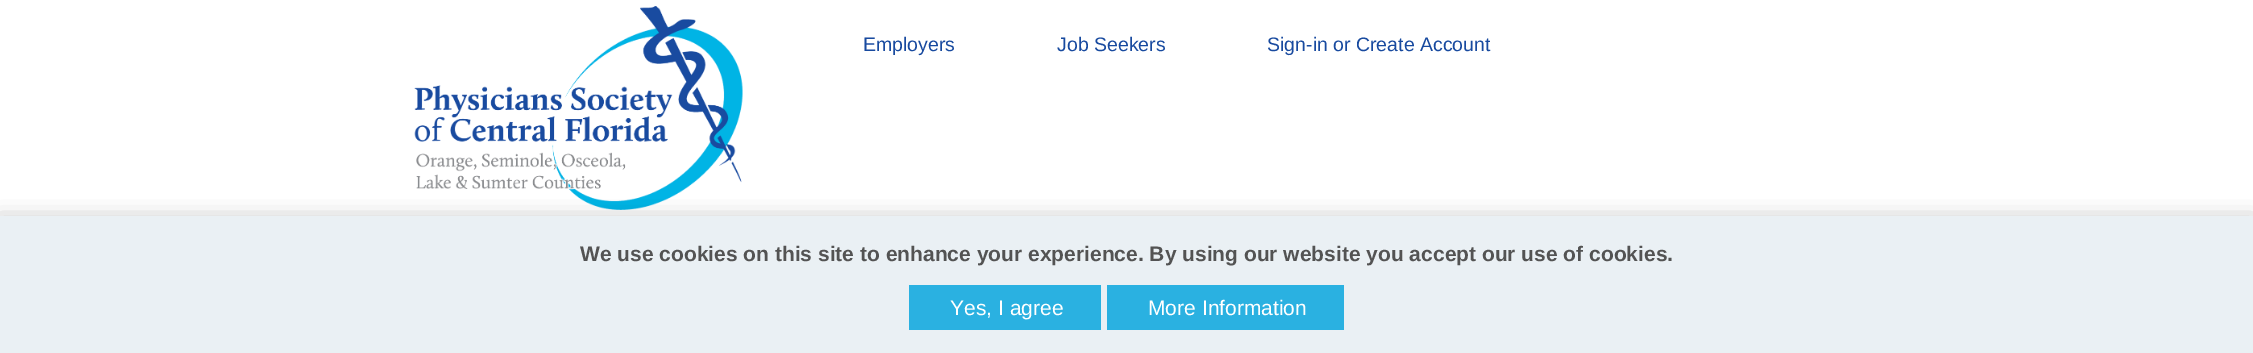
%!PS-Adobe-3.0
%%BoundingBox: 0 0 2253 353
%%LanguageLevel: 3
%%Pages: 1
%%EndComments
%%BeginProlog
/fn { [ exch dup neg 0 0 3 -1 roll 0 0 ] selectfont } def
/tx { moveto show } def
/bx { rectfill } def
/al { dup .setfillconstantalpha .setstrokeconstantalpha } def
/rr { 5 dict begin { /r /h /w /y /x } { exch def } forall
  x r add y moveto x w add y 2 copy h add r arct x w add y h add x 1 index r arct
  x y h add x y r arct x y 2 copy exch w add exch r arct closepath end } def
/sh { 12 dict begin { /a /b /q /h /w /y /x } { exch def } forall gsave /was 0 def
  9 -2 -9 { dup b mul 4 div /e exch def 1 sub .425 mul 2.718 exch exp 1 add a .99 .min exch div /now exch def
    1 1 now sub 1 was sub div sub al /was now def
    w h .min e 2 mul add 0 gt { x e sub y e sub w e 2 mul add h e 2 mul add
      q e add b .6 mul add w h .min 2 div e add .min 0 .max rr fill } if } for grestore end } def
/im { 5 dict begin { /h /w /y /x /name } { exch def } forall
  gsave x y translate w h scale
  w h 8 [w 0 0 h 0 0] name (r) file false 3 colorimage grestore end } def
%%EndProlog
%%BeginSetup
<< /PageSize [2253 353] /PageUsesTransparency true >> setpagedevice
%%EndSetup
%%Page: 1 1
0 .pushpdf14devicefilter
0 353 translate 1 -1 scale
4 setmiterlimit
1 setgray
0 0 2253 353 bx
(image0.raw) 414 6 329 204 im
/LiberationSans-Regular 19.5 fn
0.094 0.29 0.624 setrgbcolor
(Employers) 863 51 tx
(Job Seekers) 1057 51 tx
(Sign-in or Create Account) 1267 51 tx
0 setgray
0 224 2253 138 0 11 0.5 sh
0.918 0.941 0.957 setrgbcolor
0 216 2253 137 bx
/LiberationSans-Bold 21 fn
0.325 setgray
(We use cookies on this site to enhance your experience. By using our website you accept our use of cookies.) 580 261 tx
0.165 0.694 0.882 setrgbcolor
909 285 192 45 bx
/LiberationSans-Regular 21 fn
1 setgray
(Yes, I agree) 950 315 tx
0.165 0.694 0.882 setrgbcolor
1107 285 237 45 bx
1 setgray
(More Information) 1148 315 tx
.poppdf14devicefilter showpage
%%EOF
